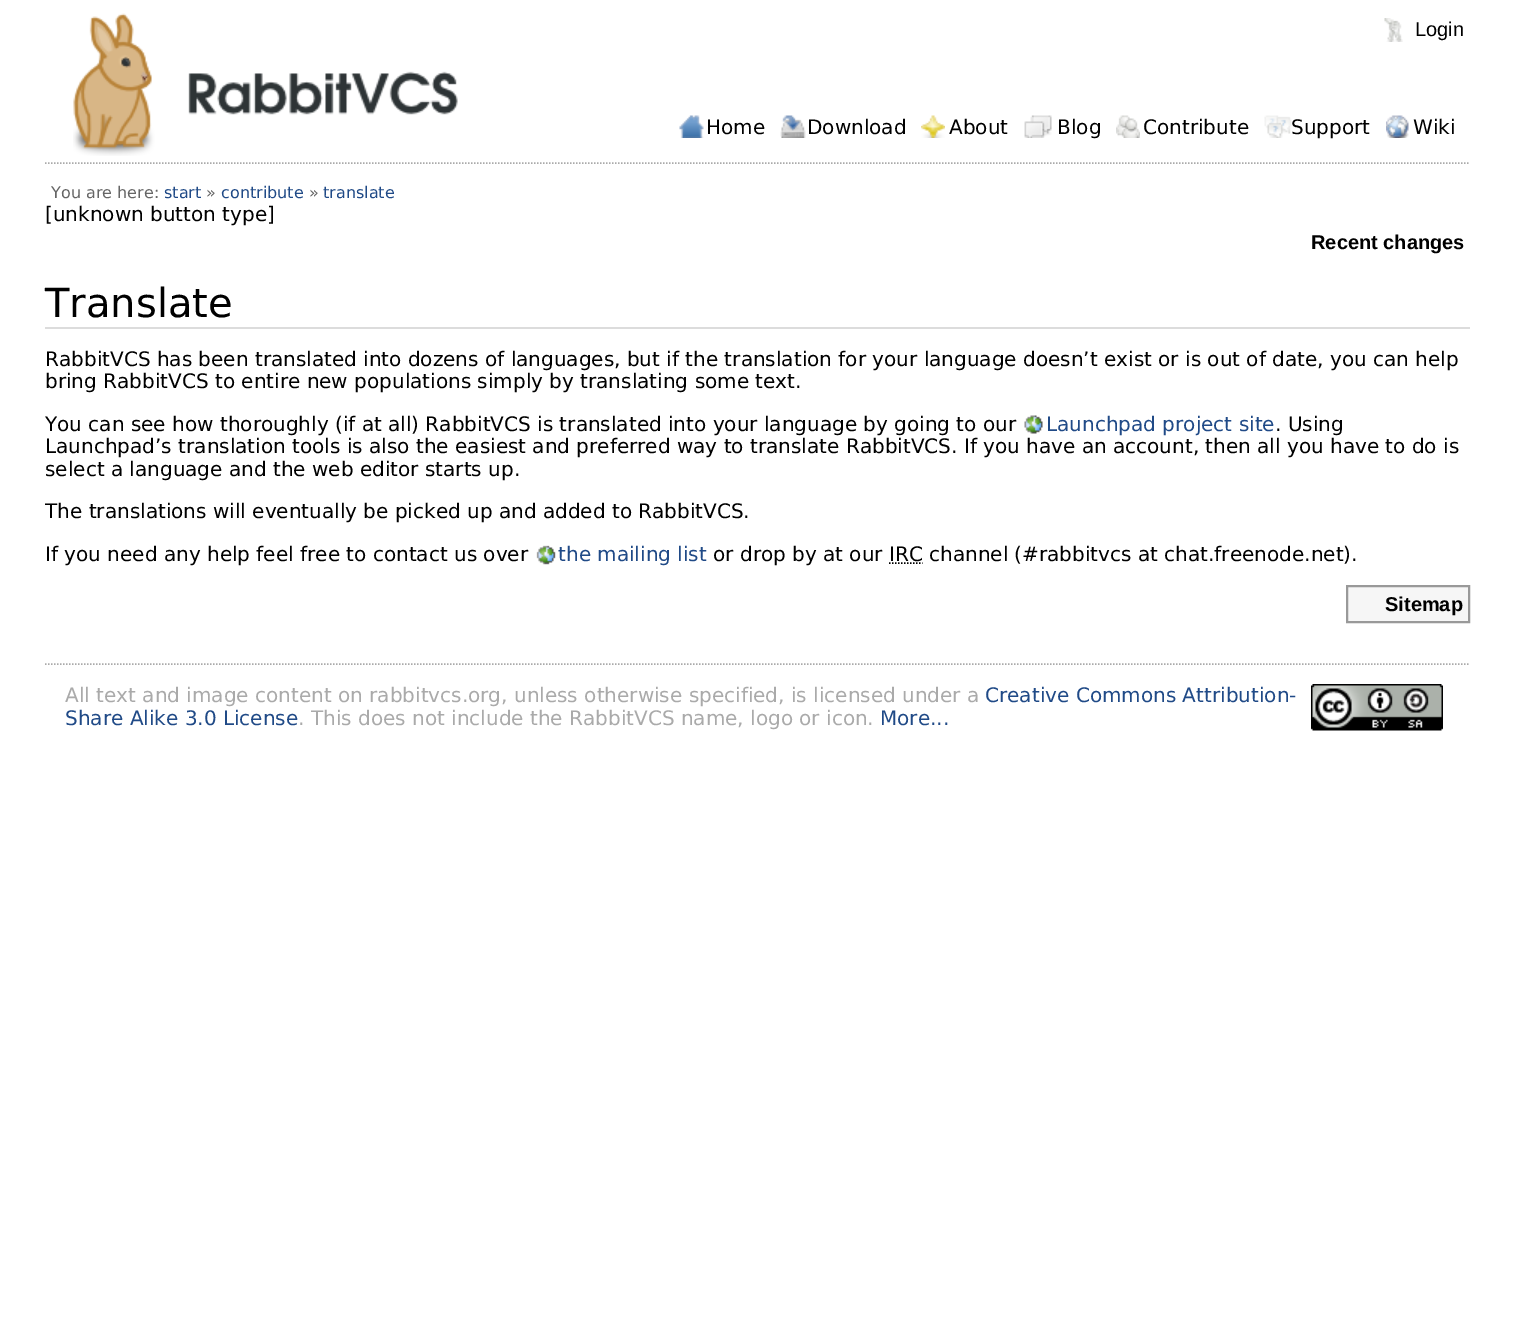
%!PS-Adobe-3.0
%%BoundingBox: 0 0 1515 1334
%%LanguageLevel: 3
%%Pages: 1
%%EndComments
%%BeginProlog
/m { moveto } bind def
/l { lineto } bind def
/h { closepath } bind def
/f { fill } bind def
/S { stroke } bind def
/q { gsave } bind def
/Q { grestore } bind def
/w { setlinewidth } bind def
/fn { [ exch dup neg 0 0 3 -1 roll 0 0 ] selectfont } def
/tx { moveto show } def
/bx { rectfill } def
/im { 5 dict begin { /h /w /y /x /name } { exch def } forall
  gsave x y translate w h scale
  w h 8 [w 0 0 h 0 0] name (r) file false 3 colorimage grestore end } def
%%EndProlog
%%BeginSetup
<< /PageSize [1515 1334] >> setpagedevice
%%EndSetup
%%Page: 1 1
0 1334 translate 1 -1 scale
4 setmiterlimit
1 setgray
0 0 1515 1334 bx
0.667 setgray
1.5 w
[1.5 1.5] 0 setdash
45 163 m 1470 163 l S
(image0.raw) 73 13 385 143 im
(image1.raw) 1384 18 19 24 im
/LiberationSans-Regular 20 fn
0 setgray
(Login) 1415 36 tx
(image2.raw) 679 115 25 23 im
/DejaVuSans-Regular 20 fn
(Home) 706 134 tx
(image3.raw) 780 115 26 23 im
(Download) 807 134 tx
(image4.raw) 921 115 24 23 im
(About) 949 134 tx
(image5.raw) 1024 115 28 23 im
(Blog) 1057 134 tx
(image6.raw) 1116 115 24 23 im
(Contribute) 1143 134 tx
(image7.raw) 1264 115 28 23 im
(Support) 1291 134 tx
(image8.raw) 1386 115 23 23 im
(Wiki) 1413 134 tx
/DejaVuSans-Regular 16 fn
0.4 setgray
(You are here:) 51 198 tx
0.125 0.29 0.529 setrgbcolor
(start) 164 198 tx
0.4 setgray
(») 206 198 tx
0.125 0.29 0.529 setrgbcolor
(contribute) 221 198 tx
0.4 setgray
(») 309 198 tx
0.125 0.29 0.529 setrgbcolor
(translate) 323 198 tx
/DejaVuSans-Regular 20 fn
0 setgray
([unknown button type]) 45 221 tx
/LiberationSans-Bold 20 fn
(Recent changes) 1311 249 tx
0.863 setgray
45 327 1425 2 bx
/DejaVuSans-Regular 40 fn
0 setgray
(Translate) 45 317 tx
/DejaVuSans-Regular 20 fn
(RabbitVCS has been translated into dozens of languages, but if the translation for your language doesn’t exist or is out of date, you can help) 45 366 tx
(bring RabbitVCS to entire new populations simply by translating some text.) 45 388 tx
(You can see how thoroughly \(if at all\) RabbitVCS is translated into your language by going to our) 45 431 tx
(image9.raw) 1024 415 19 19 im
0.125 0.29 0.529 setrgbcolor
(Launchpad project site) 1046 431 tx
0 setgray
(. Using) 1275 431 tx
(Launchpad’s translation tools is also the easiest and preferred way to translate RabbitVCS. If you have an account, then all you have to do is) 45 453 tx
(select a language and the web editor starts up.) 45 476 tx
(The translations will eventually be picked up and added to RabbitVCS.) 45 518 tx
(If you need any help feel free to contact us over) 45 561 tx
(image10.raw) 536 545 20 20 im
0.125 0.29 0.529 setrgbcolor
(the mailing list) 558 561 tx
0 setgray
(or drop by at our IRC channel \(#rabbitvcs at chat.freenode.net\).) 713 561 tx
889 563 m 922.5 563 l S
0.965 setgray
1347 586 m 1469 586 l 1469 622 l 1347 622 l h q f Q
0.6 setgray
2 w
[] 0 setdash
S
/LiberationSans-Bold 20 fn
0 setgray
(Sitemap) 1385 611 tx
0.667 setgray
1.5 w
[1.5 1.5] 0 setdash
45 664 m 1470 664 l S
/DejaVuSans-Regular 20 fn
(All text and image content on rabbitvcs.org, unless otherwise specified, is licensed under a) 65 702 tx
0.125 0.29 0.529 setrgbcolor
(Creative Commons Attribution-) 985 702 tx
(Share Alike 3.0 License) 65 725 tx
0.667 setgray
(. This does not include the RabbitVCS name, logo or icon.) 298 725 tx
0.125 0.29 0.529 setrgbcolor
(More...) 880 725 tx
(image11.raw) 1311 684 132 47 im
showpage
%%EOF
